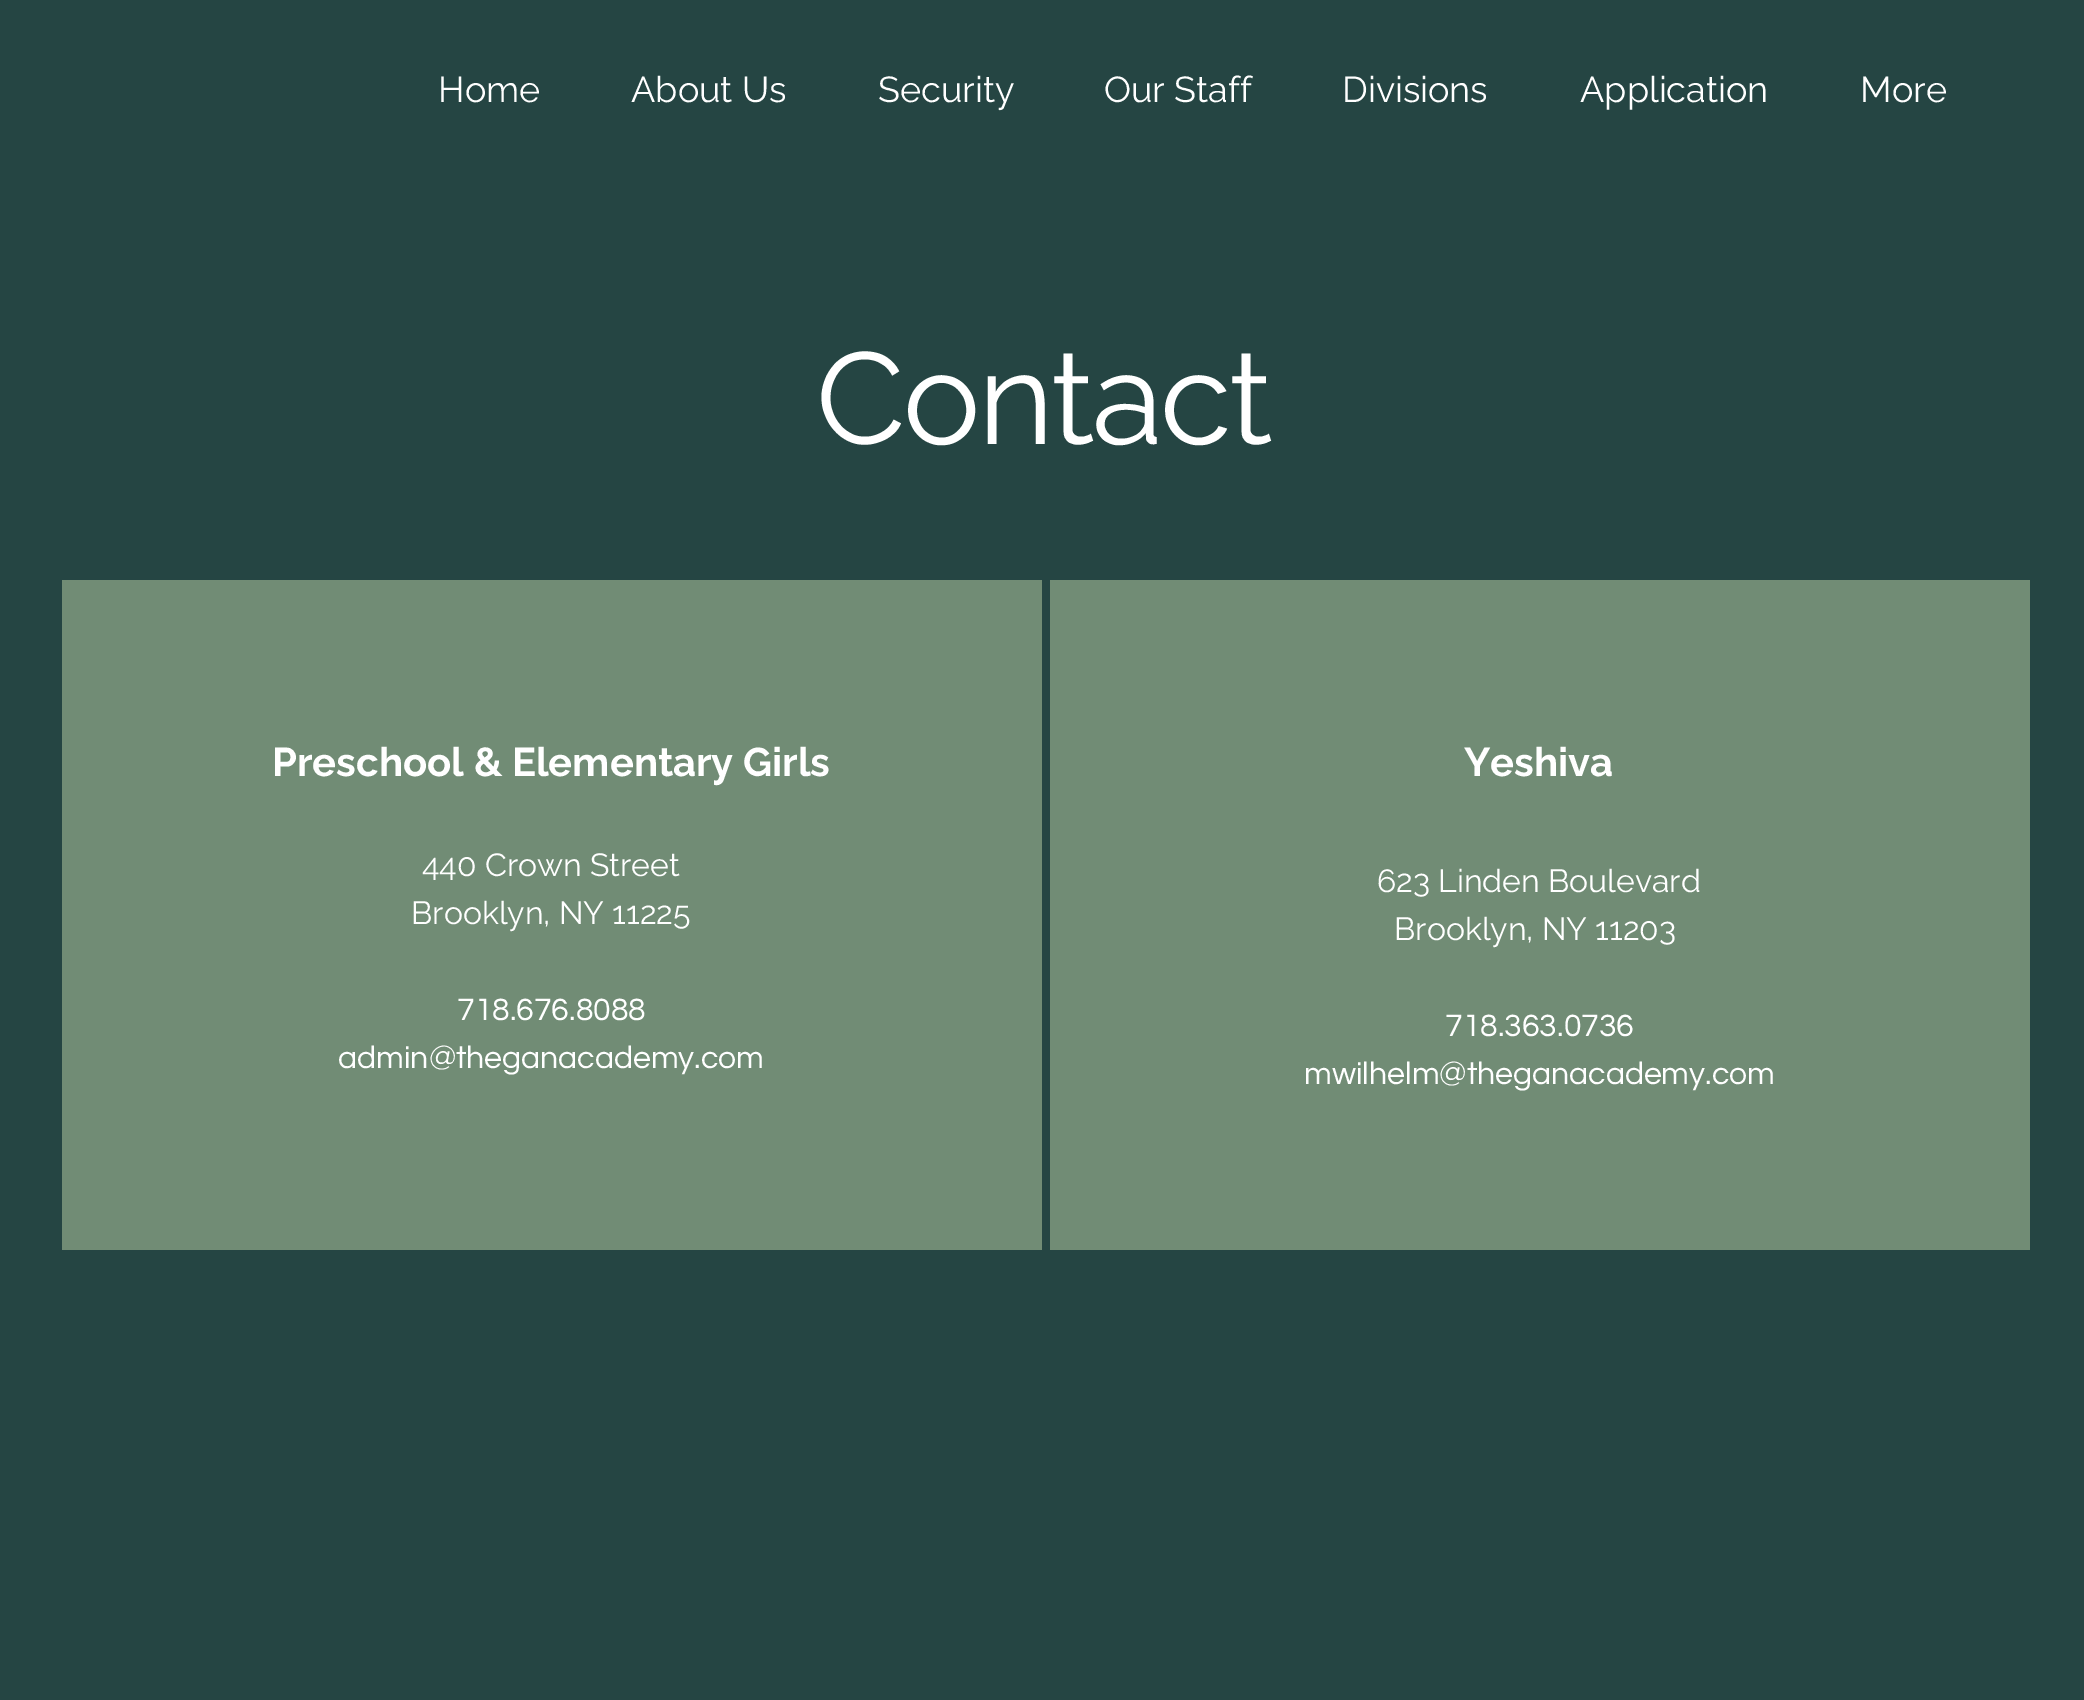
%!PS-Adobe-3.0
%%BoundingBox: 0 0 2084 1700
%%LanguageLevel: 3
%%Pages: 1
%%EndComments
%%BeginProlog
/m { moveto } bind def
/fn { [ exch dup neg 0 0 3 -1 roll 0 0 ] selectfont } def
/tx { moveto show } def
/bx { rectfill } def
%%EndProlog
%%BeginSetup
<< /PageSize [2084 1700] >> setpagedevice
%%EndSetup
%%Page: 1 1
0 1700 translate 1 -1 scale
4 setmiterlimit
0.145 0.271 0.263 setrgbcolor
0 0 2084 1700 bx
/Raleway-Regular 36 fn
1 setgray
(Home) 438 102 tx
(About Us) 631 102 tx
(Security) 878 102 tx
(Our Staff) 1104 102 tx
(Divisions) 1342 102 tx
(Application) 1580 102 tx
(More) 1860 102 tx
/Raleway-Regular 130 fn
816 444 m -2.5 0 (Contact) ashow
0.443 0.549 0.459 setrgbcolor
62 580 980 670 bx
/Raleway-Bold 40 fn
1 setgray
(Preschool & Elementary Girls) 272 776 tx
/Raleway-Regular 32 fn
(440 Crown Street) 422 876 tx
(Brooklyn, NY 11225) 411 924 tx
/Questrial-Regular 32 fn
(718.676.8088) 457 1020 tx
(admin@theganacademy.com) 338 1068 tx
0.443 0.549 0.459 setrgbcolor
1050 580 980 670 bx
/Raleway-Bold 40 fn
1 setgray
(Yeshiva) 1464 776 tx
/Raleway-Regular 32 fn
(623 Linden Boulevard) 1377 892 tx
(Brooklyn, NY 11203) 1394 940 tx
/Questrial-Regular 32 fn
(718.363.0736) 1445 1036 tx
(mwilhelm@theganacademy.com) 1304 1084 tx
showpage
%%EOF
